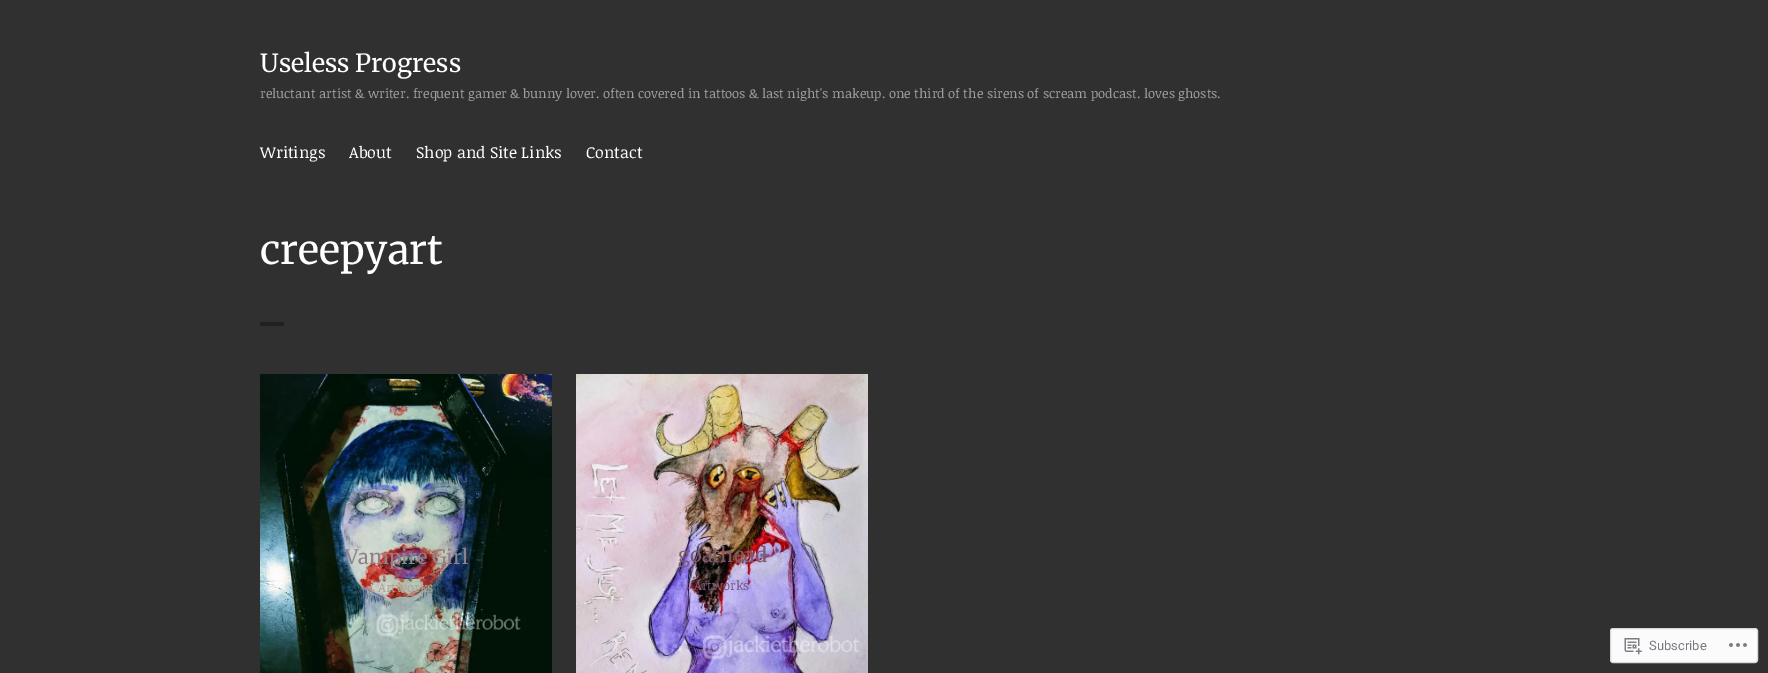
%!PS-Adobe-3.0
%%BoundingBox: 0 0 1768 673
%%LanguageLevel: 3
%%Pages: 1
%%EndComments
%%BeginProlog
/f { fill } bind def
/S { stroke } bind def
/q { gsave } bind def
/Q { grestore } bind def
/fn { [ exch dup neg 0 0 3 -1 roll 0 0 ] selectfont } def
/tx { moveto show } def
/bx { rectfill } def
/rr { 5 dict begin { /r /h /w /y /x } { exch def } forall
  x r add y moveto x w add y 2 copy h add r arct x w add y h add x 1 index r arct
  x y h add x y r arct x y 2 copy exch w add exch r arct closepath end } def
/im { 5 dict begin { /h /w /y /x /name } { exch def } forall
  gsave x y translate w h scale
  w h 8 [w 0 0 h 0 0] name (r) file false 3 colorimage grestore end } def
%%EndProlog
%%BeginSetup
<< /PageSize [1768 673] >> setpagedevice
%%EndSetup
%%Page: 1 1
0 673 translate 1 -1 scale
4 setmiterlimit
0.188 setgray
0 0 1768 673 bx
/Merriweather-Light 25 fn
1 setgray
(Useless Progress) 260 72 tx
/NoticiaText-Regular 13 fn
0.627 setgray
(reluctant artist & writer. frequent gamer & bunny lover. often covered in tattoos & last night's makeup. one third of the sirens of scream podcast. loves ghosts.) 260 98 tx
/NoticiaText-Regular 16 fn
1 setgray
(Writings) 260 158 tx
(About) 349 158 tx
(Shop and Site Links) 416 158 tx
(Contact) 586 158 tx
/Merriweather-Light 40 fn
(creepyart) 260 264 tx
0.125 setgray
260 322 24 4 bx
(image0.raw) 260 374 292 299 im
/Merriweather-Light 20 fn
0.58 0.502 0.529 setrgbcolor
(Vampire Girl) 345 564 tx
/NoticiaText-Regular 13 fn
0.678 0.643 0.596 setrgbcolor
(Artworks) 378 592 tx
(image1.raw) 576 374 292 299 im
/Merriweather-Light 20 fn
0.49 0.353 0.427 setrgbcolor
(goathead) 678 562 tx
/NoticiaText-Regular 13 fn
0.471 0.361 0.478 setrgbcolor
(Artworks) 694 590 tx
0.984 setgray
1610.5 628.5 147 34 2.5 rr q f Q
0.851 0.851 0.859 setrgbcolor
S
(image2.raw) 1624 638 18 17 im
/Roboto-Regular 13 fn
0.467 0.478 0.502 setrgbcolor
(Subscribe) 1649 650 tx
(image3.raw) 1729 643 18 4 im
showpage
%%EOF
